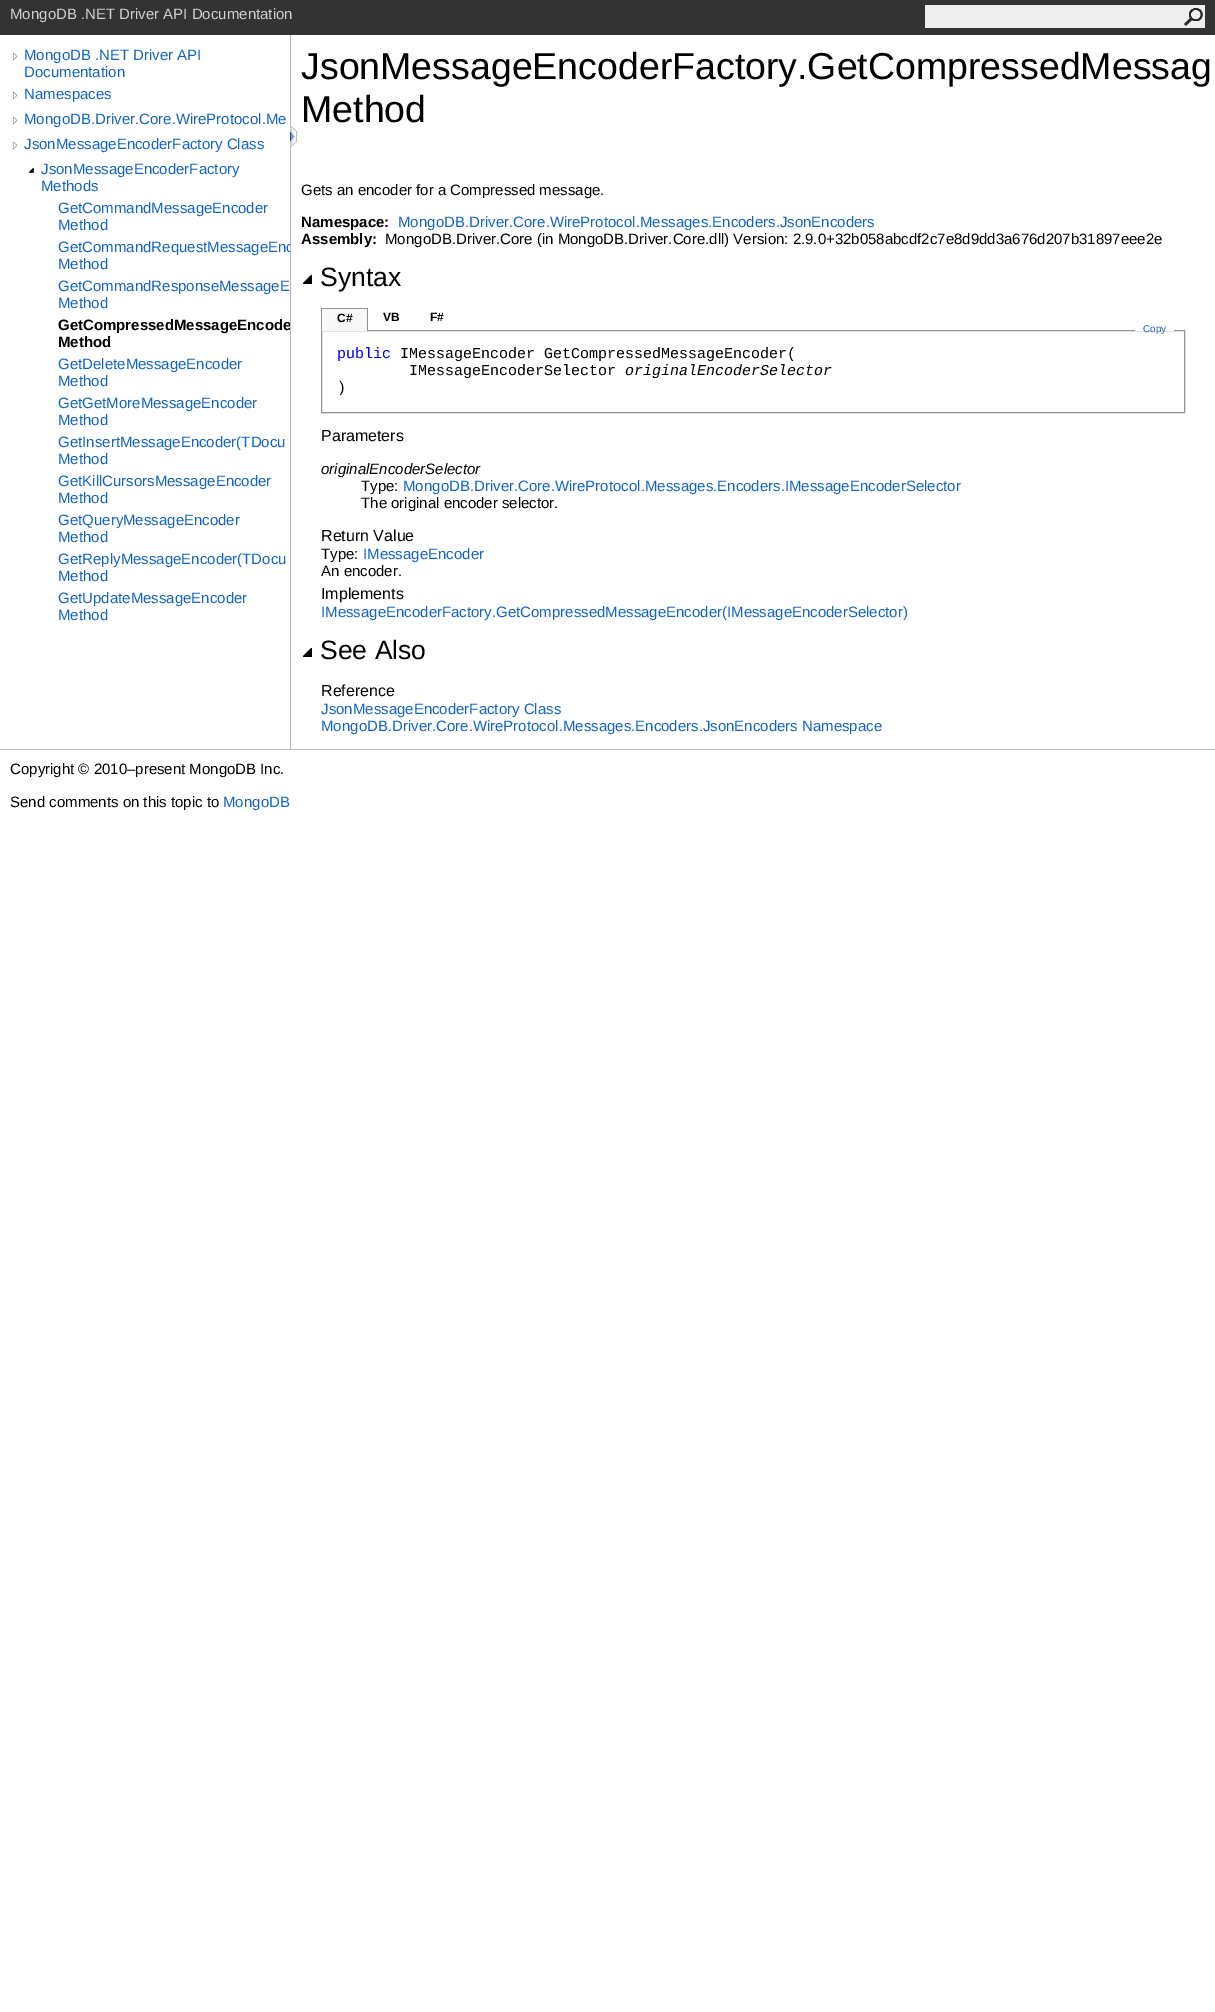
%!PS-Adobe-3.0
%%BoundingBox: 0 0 1215 2012
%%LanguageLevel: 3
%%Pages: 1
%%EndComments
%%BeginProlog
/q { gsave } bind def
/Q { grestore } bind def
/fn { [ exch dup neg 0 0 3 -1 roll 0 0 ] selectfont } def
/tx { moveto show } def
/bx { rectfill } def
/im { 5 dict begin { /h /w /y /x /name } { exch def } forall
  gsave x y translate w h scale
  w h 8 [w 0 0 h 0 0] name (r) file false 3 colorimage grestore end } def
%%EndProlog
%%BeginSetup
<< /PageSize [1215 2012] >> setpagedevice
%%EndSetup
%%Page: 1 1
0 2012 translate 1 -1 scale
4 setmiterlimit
1 setgray
0 0 1215 2012 bx
0.2 setgray
0 0 1215 35 bx
/LiberationSans-Regular 15 fn
0.816 setgray
(MongoDB .NET Driver API Documentation) 10 19 tx
0.933 setgray
925 5 280 23 bx
(image0.raw) 1184 8 19 18 im
0.714 setgray
290 35 1 714 bx
(image1.raw) 13 53 4 7 im
0.075 0.392 0.769 setrgbcolor
(MongoDB .NET Driver API) 24 60 tx
(Documentation) 24 77 tx
(image1.raw) 13 92 4 7 im
(Namespaces) 24 99 tx
(image1.raw) 13 117 4 7 im
(MongoDB.Driver.Core.WireProtocol.Me) 24 124 tx
(image1.raw) 13 142 4 7 im
(JsonMessageEncoderFactory Class) 24 149 tx
(image2.raw) 29 168 5 5 im
(JsonMessageEncoderFactory) 41 174 tx
(Methods) 41 191 tx
(GetCommandMessageEncoder) 58 213 tx
(Method) 58 230 tx
q
58 238 232 34 rectclip
(GetCommandRequestMessageEnc) 58 252 tx
Q
(Method) 58 269 tx
(GetCommandResponseMessageE) 58 291 tx
(Method) 58 308 tx
q
58 316 232 34 rectclip
/LiberationSans-Bold 15 fn
0 setgray
(GetCompressedMessageEncode) 58 330 tx
Q
/LiberationSans-Bold 15 fn
0 setgray
(Method) 58 347 tx
/LiberationSans-Regular 15 fn
0.075 0.392 0.769 setrgbcolor
(GetDeleteMessageEncoder) 58 369 tx
(Method) 58 386 tx
(GetGetMoreMessageEncoder) 58 408 tx
(Method) 58 425 tx
(GetInsertMessageEncoder\(TDocu) 58 447 tx
(Method) 58 464 tx
(GetKillCursorsMessageEncoder) 58 486 tx
(Method) 58 503 tx
(GetQueryMessageEncoder) 58 525 tx
(Method) 58 542 tx
(GetReplyMessageEncoder\(TDocu) 58 564 tx
(Method) 58 581 tx
(GetUpdateMessageEncoder) 58 603 tx
(Method) 58 620 tx
(image3.raw) 290 125 7 23 im
/LiberationSans-Regular 37.5 fn
0 setgray
(JsonMessageEncoderFactory.GetCompressedMessag) 301 79 tx
(Method) 301 122 tx
/LiberationSans-Regular 15 fn
(Gets an encoder for a Compressed message.) 301 195 tx
/LiberationSans-Bold 15 fn
(Namespace:) 301 227 tx
/LiberationSans-Regular 15 fn
0.075 0.392 0.769 setrgbcolor
(MongoDB.Driver.Core.WireProtocol.Messages.Encoders.JsonEncoders) 398 227 tx
/LiberationSans-Bold 15 fn
0 setgray
(Assembly:) 301 244 tx
/LiberationSans-Regular 15 fn
(MongoDB.Driver.Core \(in MongoDB.Driver.Core.dll\) Version: 2.9.0+32b058abcdf2c7e8d9dd3a676d207b31897eee2e) 385 244 tx
(image4.raw) 303 275 9 9 im
/LiberationSans-Regular 26.5 fn
(Syntax) 320 286 tx
0.576 setgray
321.5 330.5 863 82 rectstroke
0.973 setgray
322 309 45 22 bx
0.576 setgray
321 308 47 1 bx
367 308 1 23 bx
321 308 1 23 bx
/LiberationSans-Bold 12 fn
0 setgray
(C#) 337 322 tx
(VB) 383 321 tx
(F#) 430 321 tx
1 setgray
1135 330 39 1 bx
/LiberationSans-Regular 10 fn
0.075 0.392 0.769 setrgbcolor
(Copy) 1143 332 tx
/LiberationMono-Regular 15 fn
0 0 1 setrgbcolor
(public) 337 358 tx
0 setgray
(IMessageEncoder GetCompressedMessageEncoder\() 400 358 tx
(IMessageEncoderSelector) 409 375 tx
/LiberationMono-Italic 15 fn
(originalEncoderSelector) 625 375 tx
/LiberationMono-Regular 15 fn
(\)) 337 392 tx
/LiberationSans-Regular 16 fn
(Parameters) 321 441 tx
/LiberationSans-Italic 15 fn
(originalEncoderSelector) 321 474 tx
/LiberationSans-Regular 15 fn
(Type:) 361 491 tx
0.075 0.392 0.769 setrgbcolor
(MongoDB.Driver.Core.WireProtocol.Messages.Encoders.IMessageEncoderSelector) 403 491 tx
0 setgray
(The original encoder selector.) 361 508 tx
/LiberationSans-Regular 16 fn
(Return Value) 321 541 tx
/LiberationSans-Regular 15 fn
(Type:) 321 559 tx
0.075 0.392 0.769 setrgbcolor
(IMessageEncoder) 363 559 tx
0 setgray
(An encoder.) 321 576 tx
/LiberationSans-Regular 16 fn
(Implements) 321 599 tx
/LiberationSans-Regular 15 fn
0.075 0.392 0.769 setrgbcolor
(IMessageEncoderFactory.GetCompressedMessageEncoder\(IMessageEncoderSelector\)) 321 617 tx
(image4.raw) 303 648 9 9 im
/LiberationSans-Regular 26.5 fn
0 setgray
(See Also) 320 659 tx
/LiberationSans-Regular 16 fn
(Reference) 321 696 tx
/LiberationSans-Regular 15 fn
0.075 0.392 0.769 setrgbcolor
(JsonMessageEncoderFactory Class) 321 714 tx
(MongoDB.Driver.Core.WireProtocol.Messages.Encoders.JsonEncoders Namespace) 321 731 tx
0.733 setgray
0 749 1215 1 bx
0 setgray
(Copyright © 2010–present MongoDB Inc.) 10 774 tx
(Send comments on this topic to) 10 807 tx
0.075 0.392 0.769 setrgbcolor
(MongoDB) 223 807 tx
showpage
%%EOF
